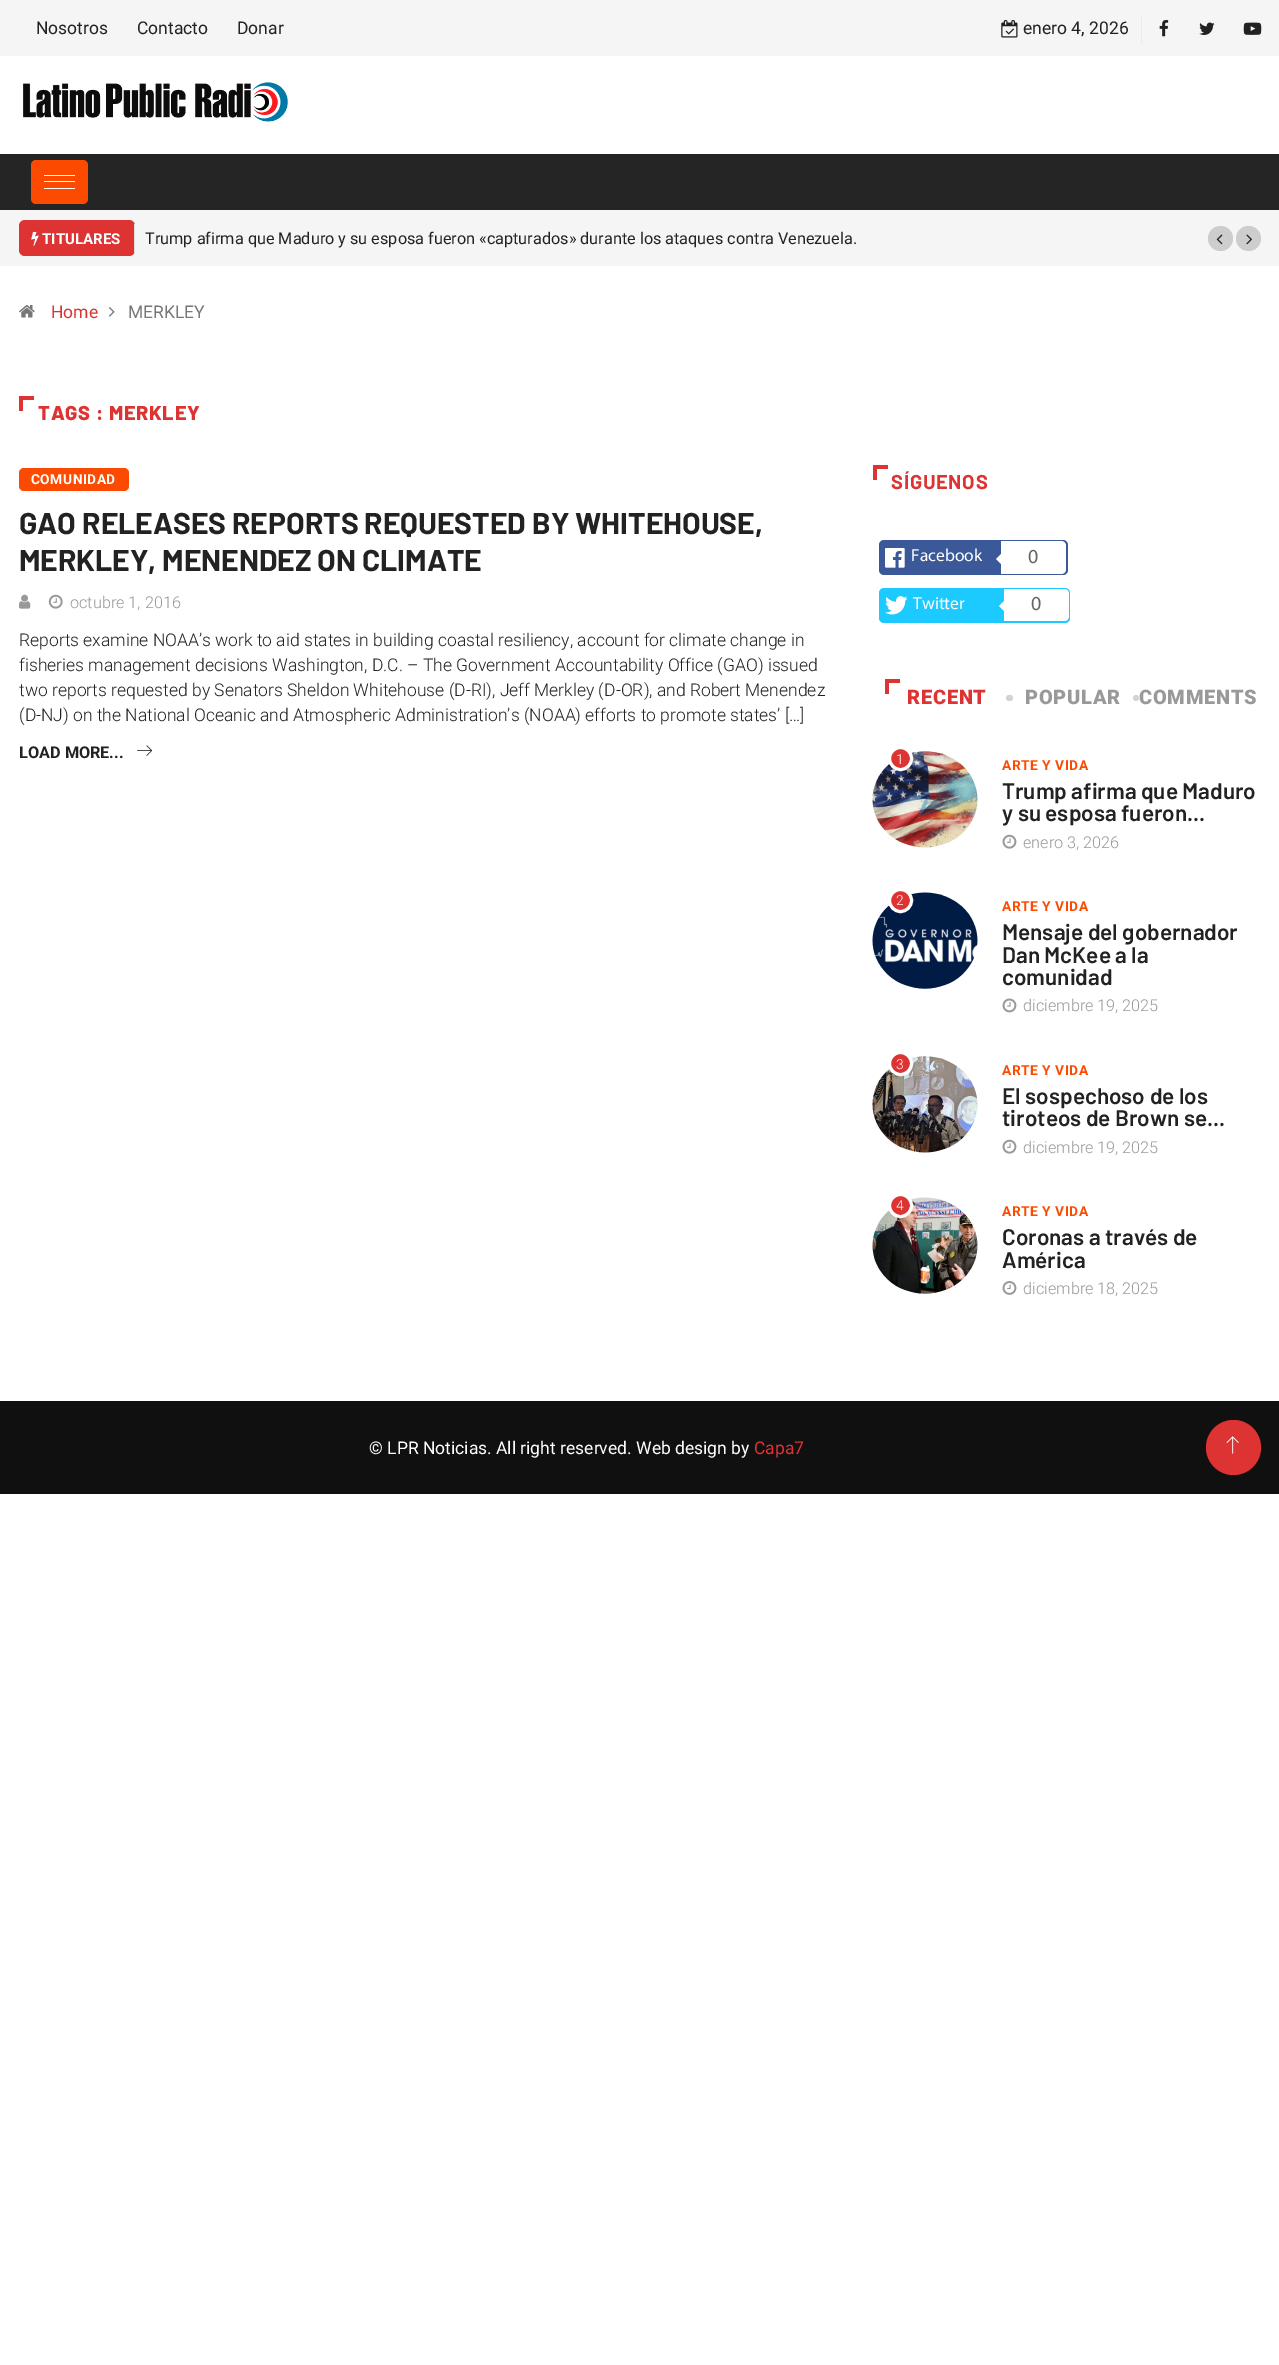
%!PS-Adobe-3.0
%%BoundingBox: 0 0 1279 2365
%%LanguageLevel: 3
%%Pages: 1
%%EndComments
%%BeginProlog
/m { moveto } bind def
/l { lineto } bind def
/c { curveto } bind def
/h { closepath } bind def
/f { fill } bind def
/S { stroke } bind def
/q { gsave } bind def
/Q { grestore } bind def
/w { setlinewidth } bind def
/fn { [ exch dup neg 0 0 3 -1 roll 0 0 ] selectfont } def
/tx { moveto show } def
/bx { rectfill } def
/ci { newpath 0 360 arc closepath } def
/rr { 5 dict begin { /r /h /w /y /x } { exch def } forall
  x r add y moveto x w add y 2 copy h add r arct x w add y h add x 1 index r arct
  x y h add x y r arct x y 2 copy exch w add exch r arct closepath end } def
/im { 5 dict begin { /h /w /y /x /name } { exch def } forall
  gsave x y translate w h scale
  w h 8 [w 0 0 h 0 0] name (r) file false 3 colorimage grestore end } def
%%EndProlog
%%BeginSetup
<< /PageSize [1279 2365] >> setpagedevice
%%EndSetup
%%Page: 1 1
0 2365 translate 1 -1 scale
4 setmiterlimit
1 setgray
0 0 1279 2365 bx
0.961 setgray
0 0 1279 56 bx
/Roboto-Regular 17.5 fn
0.133 setgray
(Nosotros) 36 34 tx
(Contacto) 137 34 tx
(Donar) 237 34 tx
0.918 setgray
1141 15 1 28 bx
(image0.raw) 1001 20 17 18 im
0.133 setgray
(enero 4, 2026) 1023 34 tx
(image1.raw) 1159 20 10 17 im
(image2.raw) 1199 22 16 13 im
(image3.raw) 1243 22 19 13 im
(image4.raw) 23 82 265 40 im
0.149 0.145 0.145 setrgbcolor
0 154 1279 56 bx
0.988 0.29 0 setrgbcolor
31 160 57 44 5 rr f
1 setgray
44 175 31 1 bx
44 181 31 1 bx
44 188 31 1 bx
0.961 setgray
0 210 1279 56 bx
0.867 0.2 0.2 setrgbcolor
19 220 116 36 6 rr f
0.871 0.859 0.859 setrgbcolor
134 224 1 30 bx
(image5.raw) 31 231 8 15 im
/Roboto-Bold 15 fn
1 setgray
(TITULARES) 42 244 tx
/Roboto-Regular 16.25 fn
0.133 setgray
(Trump afirma que Maduro y su esposa fueron «capturados» durante los ataques contra Venezuela.) 145 244 tx
0.804 setgray
1220.5 238.5 12.5 ci f
(image6.raw) 1216 234 7 11 im
1248.5 238.5 12.5 ci f
(image7.raw) 1246 234 6 11 im
(image8.raw) 19 305 16 13 im
/Roboto-Regular 17.5 fn
0.867 0.2 0.2 setrgbcolor
(Home) 51 318 tx
(image9.raw) 108 307 7 10 im
0.467 setgray
(MERKLEY) 128 318 tx
0.867 0.2 0.2 setrgbcolor
19 396 4 15 bx
19 396 15 4 bx
/Barlow-ExtraBold 20 fn
38 420 m 0.75 0 (TAGS : MERKLEY) ashow
0.988 0.29 0 setrgbcolor
19 468 110 23 5 rr f
/Roboto-Bold 13.75 fn
1 setgray
31 484 m 0.5 0 (COMUNIDAD) ashow
/Barlow-Bold 30 fn
0.133 setgray
(GAO RELEASES REPORTS REQUESTED BY WHITEHOUSE,) 19 534 tx
(MERKLEY, MENENDEZ ON CLIMATE) 19 571 tx
(image10.raw) 19 594 12 15 im
(image11.raw) 48 594 15 15 im
/Roboto-Light 16.25 fn
0.6 setgray
(octubre 1, 2016) 70 608 tx
/Roboto-Light 17.5 fn
0.133 setgray
(Reports examine NOAA’s work to aid states in building coastal resiliency, account for climate change in) 19 646 tx
(fisheries management decisions Washington, D.C. – The Government Accountability Office \(GAO\) issued) 19 671 tx
(two reports requested by Senators Sheldon Whitehouse \(D-RI\), Jeff Merkley \(D-OR\), and Robert Menendez) 19 696 tx
(\(D-NJ\) on the National Oceanic and Atmospheric Administration’s \(NOAA\) efforts to promote states’ […]) 19 721 tx
/Roboto-Bold 16.25 fn
(LOAD MORE...) 19 758 tx
(image12.raw) 137 745 15 11 im
0.867 0.2 0.2 setrgbcolor
873 465 4 15 bx
873 465 15 4 bx
/Barlow-Bold 20 fn
891 489 m 0.75 0 (SÍGUENOS) ashow
0.231 0.349 0.596 setrgbcolor
879 540 189 35 5 rr f
(image13.raw) 885 548 20 20 im
/Myriad-Regular 17.5 fn
1 setgray
(Facebook) 911 561 tx
1001 541 m 1061 541 l 1064 541 1066 543 1066 546 c 1066 569 l 1066 572 1064 574 1061 574 c 1001 574 l h f
1001 554 m 1001 564 l 996 559 l h f
/Myriad-Regular 20 fn
0.4 setgray
(0) 1028 563 tx
0.114 0.792 1 setrgbcolor
879 588 191 35 5 rr f
(image14.raw) 885 596 23 19 im
/Myriad-Regular 17.5 fn
1 setgray
(Twitter) 913 609 tx
1004 589 m 1064 589 l 1067 589 1069 591 1069 594 c 1069 616 l 1069 619 1067 621 1064 621 c 1004 621 l h f
1004 601 m 1004 611 l 999 606 l h f
/Myriad-Regular 20 fn
0.4 setgray
(0) 1031 610 tx
0.867 0.2 0.2 setrgbcolor
885 679 4 15 bx
885 679 15 4 bx
/Roboto-Black 20 fn
907 704 m 0.75 0 (RECENT) ashow
0.827 setgray
1006 695 7 6 3 rr f
0.6 setgray
1025 704 m 0.75 0 (POPULAR) ashow
0.827 setgray
1136 698 3 ci f
0.6 setgray
1139 704 m 0.75 0 (COMMENTS) ashow
(image15.raw) 872 751 106 97 im
0.867 0.2 0.2 setrgbcolor
900.5 758.5 11 ci q f Q
1 setgray
3 w
S
/Roboto-Light 13.75 fn
(1) 896 764 tx
/Roboto-Bold 13.75 fn
0.988 0.29 0 setrgbcolor
1002 770 m 0.5 0 (ARTE Y VIDA) ashow
/Barlow-SemiBold 22.5 fn
0.133 setgray
(Trump afirma que Maduro) 1002 799 tx
(y su esposa fueron...) 1002 821 tx
(image16.raw) 1002 834 15 15 im
/Roboto-Light 16.25 fn
0.6 setgray
(enero 3, 2026) 1023 848 tx
(image17.raw) 872 892 106 97 im
0.867 0.2 0.2 setrgbcolor
900.5 900.5 11 ci q f Q
1 setgray
S
/Roboto-Light 13.75 fn
(2) 896 905 tx
/Roboto-Bold 13.75 fn
0.988 0.29 0 setrgbcolor
1002 911 m 0.5 0 (ARTE Y VIDA) ashow
/Barlow-SemiBold 22.5 fn
0.133 setgray
(Mensaje del gobernador) 1002 940 tx
(Dan McKee a la) 1002 963 tx
(comunidad) 1002 985 tx
(image18.raw) 1002 998 15 15 im
/Roboto-Light 16.25 fn
0.6 setgray
(diciembre 19, 2025) 1023 1011 tx
(image19.raw) 872 1056 106 97 im
0.867 0.2 0.2 setrgbcolor
900.5 1063.5 11 ci q f Q
1 setgray
S
/Roboto-Light 13.75 fn
(3) 896 1069 tx
/Roboto-Bold 13.75 fn
0.988 0.29 0 setrgbcolor
1002 1075 m 0.5 0 (ARTE Y VIDA) ashow
/Barlow-SemiBold 22.5 fn
0.133 setgray
(El sospechoso de los) 1002 1104 tx
(tiroteos de Brown se...) 1002 1126 tx
(image16.raw) 1002 1139 15 15 im
/Roboto-Light 16.25 fn
0.6 setgray
(diciembre 19, 2025) 1023 1153 tx
(image20.raw) 872 1197 106 97 im
0.867 0.2 0.2 setrgbcolor
900.5 1205.5 11 ci q f Q
1 setgray
S
/Roboto-Light 13.75 fn
(4) 896 1210 tx
/Roboto-Bold 13.75 fn
0.988 0.29 0 setrgbcolor
1002 1216 m 0.5 0 (ARTE Y VIDA) ashow
/Barlow-SemiBold 22.5 fn
0.133 setgray
(Coronas a través de) 1002 1245 tx
(América) 1002 1268 tx
(image21.raw) 1002 1281 15 14 im
/Roboto-Light 16.25 fn
0.6 setgray
(diciembre 18, 2025) 1023 1294 tx
0.063 setgray
0 1401 1279 93 bx
/Roboto-Regular 17.5 fn
1 setgray
(© LPR Noticias. All right reserved. Web design by) 369 1454 tx
0.867 0.2 0.2 setrgbcolor
(Capa7) 754 1454 tx
1233.5 1447.5 27.5 ci f
(image22.raw) 1226 1436 13 18 im
showpage
%%EOF
